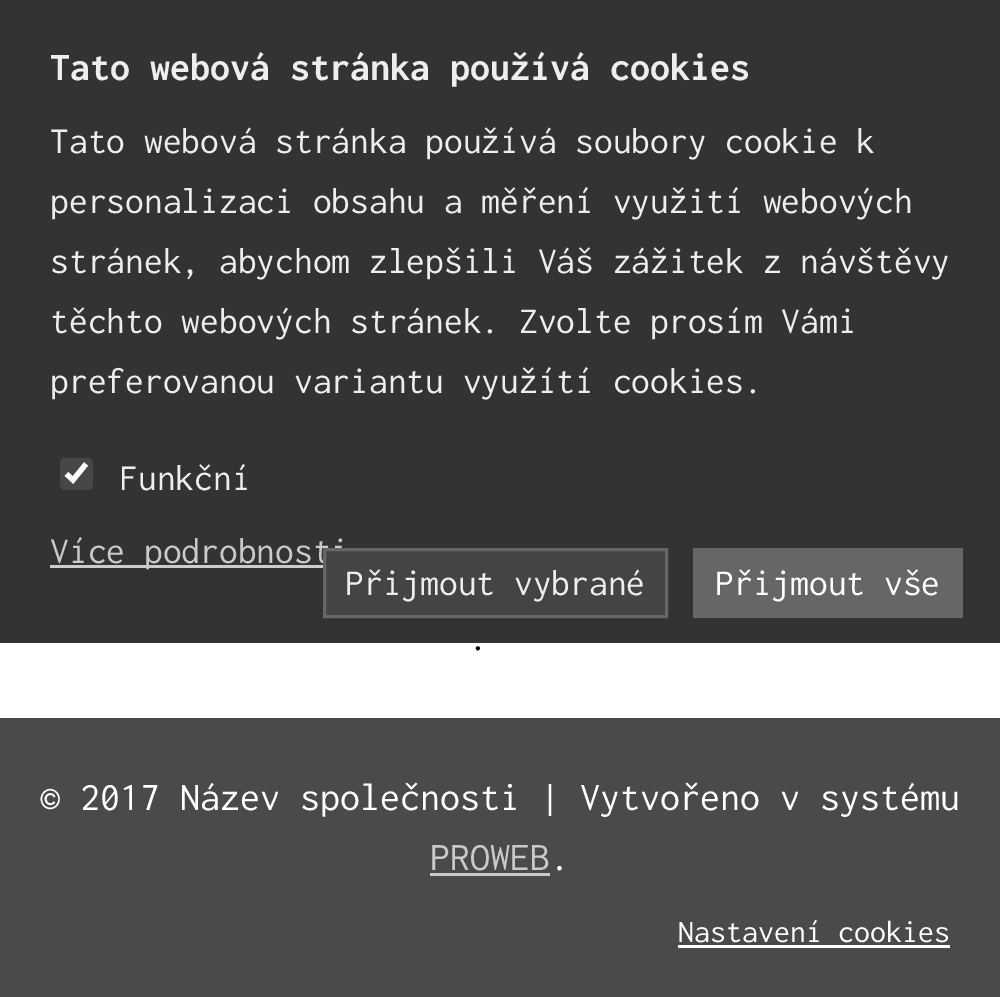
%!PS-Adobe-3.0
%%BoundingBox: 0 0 1000 997
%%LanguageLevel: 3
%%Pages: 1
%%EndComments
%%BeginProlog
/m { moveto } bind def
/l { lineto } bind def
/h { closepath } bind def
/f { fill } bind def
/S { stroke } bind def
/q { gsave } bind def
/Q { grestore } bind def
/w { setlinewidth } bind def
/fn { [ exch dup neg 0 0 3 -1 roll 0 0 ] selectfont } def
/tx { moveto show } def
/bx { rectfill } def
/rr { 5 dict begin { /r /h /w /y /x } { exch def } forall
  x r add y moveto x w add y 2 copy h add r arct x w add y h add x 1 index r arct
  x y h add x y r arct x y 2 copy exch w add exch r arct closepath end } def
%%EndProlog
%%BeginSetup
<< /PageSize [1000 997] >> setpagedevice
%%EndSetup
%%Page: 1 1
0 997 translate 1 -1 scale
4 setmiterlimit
1 setgray
0 0 1000 997 bx
0.2 setgray
0 0 1000 643 bx
/Inconsolata-Bold 40 fn
0.933 setgray
(Tato webová stránka používá cookies) 50 80 tx
/Inconsolata-Regular 37.5 fn
(Tato webová stránka používá soubory cookie k) 50 153 tx
(personalizaci obsahu a měření využití webových) 50 213 tx
(stránek, abychom zlepšili Váš zážitek z návštěvy) 50 273 tx
(těchto webových stránek. Zvolte prosím Vámi) 50 333 tx
(preferovanou variantu využítí cookies.) 50 393 tx
0.278 setgray
60 458 33 32 5 rr f
1 setgray
5.2 w
66.5 474 m 73 480 l 86 464 l S
0.933 setgray
(Funkční) 119 490 tx
0.8 setgray
50 565 273 3 bx
0.792 setgray
(Více podrobnosti) 50 563 tx
0.267 setgray
324.5 549.5 m 666.5 549.5 l 666.5 616.5 l 324.5 616.5 l h q f Q
0.4 setgray
3 w
S
0.933 setgray
(Přijmout vybrané) 345 595 tx
0.4 setgray
693 548 270 70 bx
1 setgray
(Přijmout vše) 715 595 tx
0 setgray
(.) 469 650 tx
0.29 setgray
0 718 1000 279 bx
/Inconsolata-Regular 40 fn
1 setgray
(© 2017 Název společnosti | Vytvořeno v systému) 40 810 tx
0.792 setgray
(PROWEB) 430 870 tx
430 873 120 3 bx
1 setgray
(.) 550 870 tx
/Inconsolata-Regular 32 fn
(Nastavení cookies) 678 942 tx
678 945 272 3 bx
showpage
%%EOF
